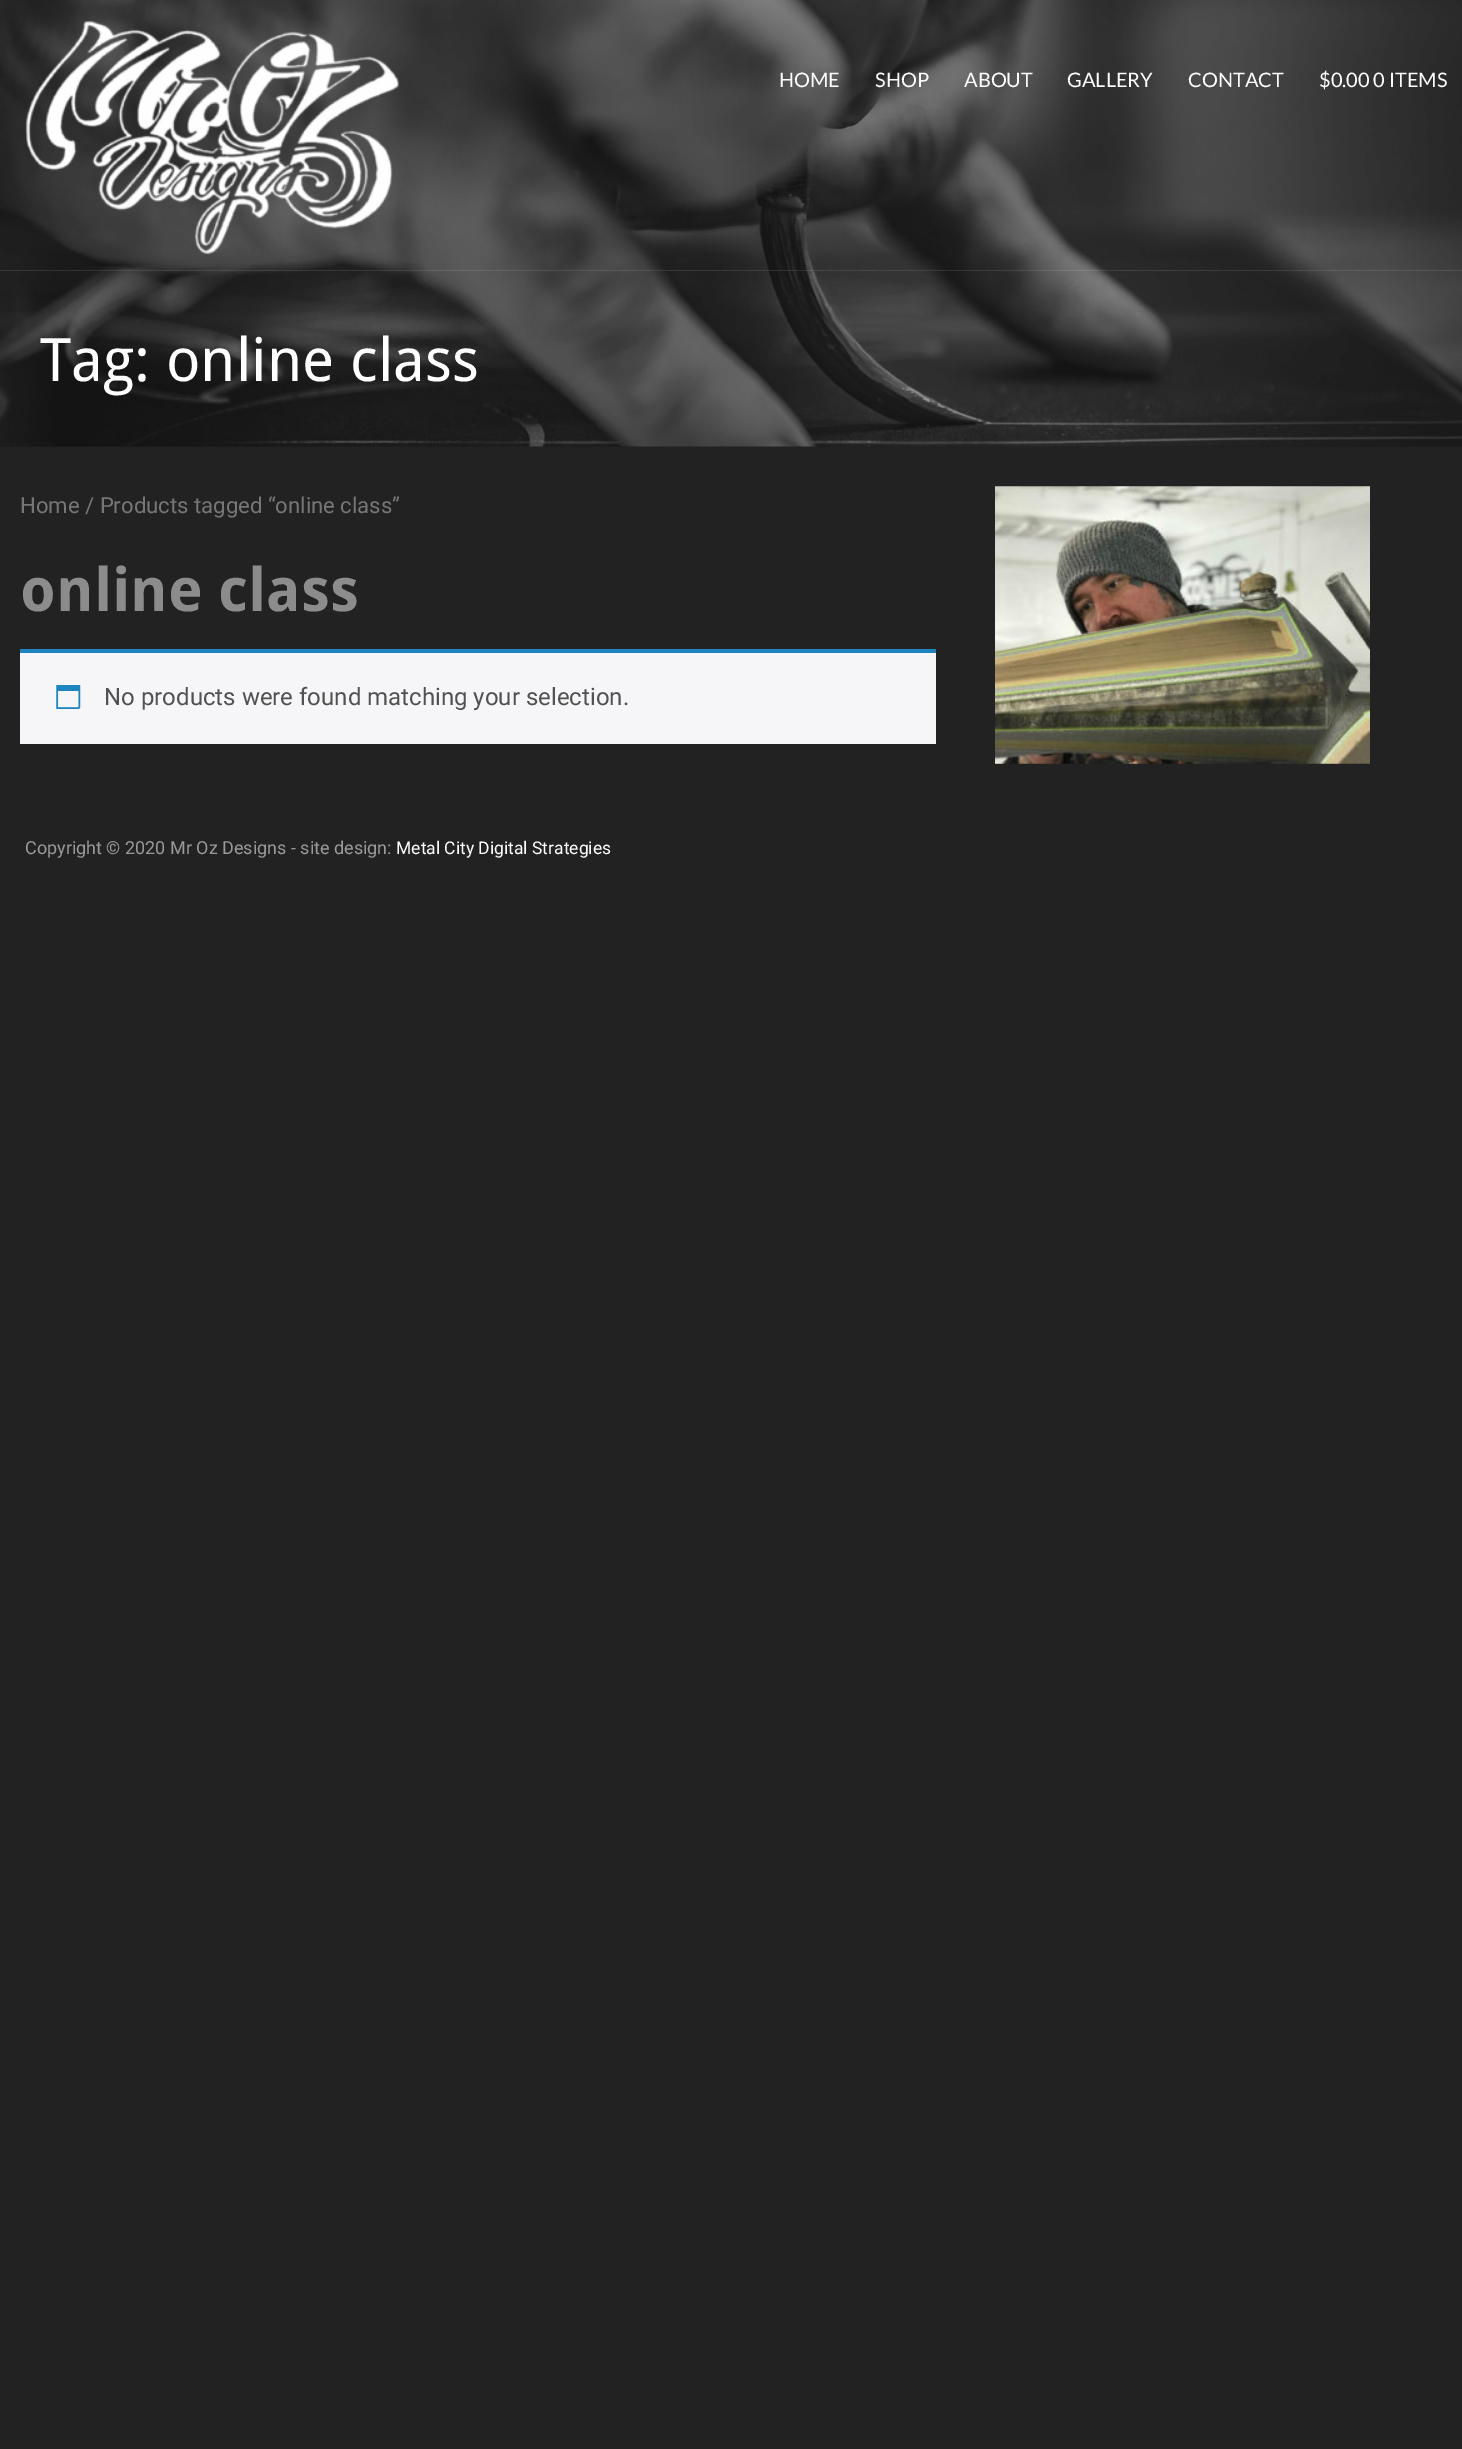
%!PS-Adobe-3.0
%%BoundingBox: 0 0 1462 2449
%%LanguageLevel: 3
%%Pages: 1
%%EndComments
%%BeginProlog
/fn { [ exch dup neg 0 0 3 -1 roll 0 0 ] selectfont } def
/tx { moveto show } def
/bx { rectfill } def
/al { dup .setfillconstantalpha .setstrokeconstantalpha } def
/im { 5 dict begin { /h /w /y /x /name } { exch def } forall
  gsave x y translate w h scale
  w h 8 [w 0 0 h 0 0] name (r) file false 3 colorimage grestore end } def
%%EndProlog
%%BeginSetup
<< /PageSize [1462 2449] /PageUsesTransparency true >> setpagedevice
%%EndSetup
%%Page: 1 1
0 .pushpdf14devicefilter
0 2449 translate 1 -1 scale
4 setmiterlimit
0.133 setgray
0 0 1462 2449 bx
(image0.raw) 0 0 1462 447 im
0.1 al
1 setgray
0 270 1462 1 bx
1 al
(image1.raw) 25 21 374 234 im
/Lato-Regular 20 fn
(HOME) 779 87 tx
(SHOP) 875 87 tx
(ABOUT) 964 87 tx
(GALLERY) 1067 87 tx
(CONTACT) 1188 87 tx
($0.00 0 ITEMS) 1319 87 tx
/DroidSans-Regular 60 fn
(Tag: online class) 40 381 tx
/Roboto-Regular 22.1 fn
0.463 setgray
(Home / Products tagged “online class”) 20 513 tx
/DroidSans-Bold 60 fn
0.549 setgray
(online class) 20 611 tx
0.965 0.961 0.973 setrgbcolor
20 653 916 91 bx
0.118 0.522 0.745 setrgbcolor
20 649 916 4 bx
(image2.raw) 56 685 25 24 im
/Roboto-Regular 24 fn
0.318 setgray
(No products were found matching your selection.) 104 705 tx
(image3.raw) 995 486 375 278 im
/Roboto-Regular 18 fn
0.6 setgray
(Copyright © 2020 Mr Oz Designs - site design:) 25 854 tx
/Roboto-Regular 17.5 fn
1 setgray
(Metal City Digital Strategies) 396 854 tx
.poppdf14devicefilter showpage
%%EOF
